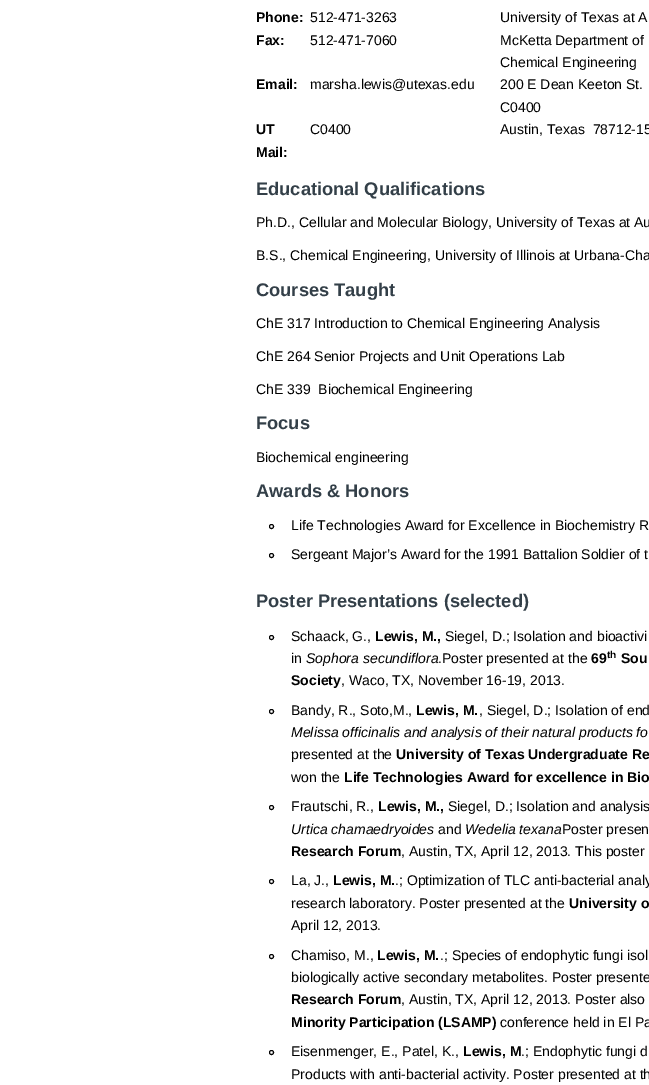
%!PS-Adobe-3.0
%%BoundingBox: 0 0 649 1085
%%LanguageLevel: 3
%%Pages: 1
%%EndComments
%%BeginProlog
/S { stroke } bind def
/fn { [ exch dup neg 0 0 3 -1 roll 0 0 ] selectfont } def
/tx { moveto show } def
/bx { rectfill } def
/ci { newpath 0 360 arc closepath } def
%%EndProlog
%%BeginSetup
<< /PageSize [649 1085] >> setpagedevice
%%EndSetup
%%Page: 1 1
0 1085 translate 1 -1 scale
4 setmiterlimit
1 setgray
0 0 649 1085 bx
/LiberationSans-Bold 14 fn
0 setgray
(Phone:) 256 22 tx
/LiberationSans-Regular 14 fn
(512-471-3263) 310 22 tx
(University of Texas at A) 500 22 tx
/LiberationSans-Bold 14 fn
(Fax:) 256 45 tx
/LiberationSans-Regular 14 fn
(512-471-7060) 310 45 tx
(McKetta Department of) 500 45 tx
(Chemical Engineering) 500 67 tx
/LiberationSans-Bold 14 fn
(Email:) 256 89 tx
/LiberationSans-Regular 14 fn
(marsha.lewis@utexas.edu) 310 89 tx
(200 E Dean Keeton St.) 500 89 tx
(C0400) 500 112 tx
/LiberationSans-Bold 14 fn
(UT) 256 134 tx
(Mail:) 256 157 tx
/LiberationSans-Regular 14 fn
(C0400) 310 134 tx
(Austin, Texas  78712-15) 500 134 tx
/LiberationSans-Bold 18.25 fn
0.2 0.247 0.282 setrgbcolor
(Educational Qualifications) 256 195 tx
/LiberationSans-Regular 14 fn
0 setgray
(Ph.D., Cellular and Molecular Biology, University of Texas at Au) 256 227 tx
(B.S., Chemical Engineering, University of Illinois at Urbana-Cha) 256 260 tx
/LiberationSans-Bold 18.25 fn
0.2 0.247 0.282 setrgbcolor
(Courses Taught) 256 296 tx
/LiberationSans-Regular 14 fn
0 setgray
(ChE 317 Introduction to Chemical Engineering Analysis) 256 328 tx
(ChE 264 Senior Projects and Unit Operations Lab) 256 361 tx
(ChE 339  Biochemical Engineering) 256 394 tx
/LiberationSans-Bold 18.25 fn
0.2 0.247 0.282 setrgbcolor
(Focus) 256 429 tx
/LiberationSans-Regular 14 fn
0 setgray
(Biochemical engineering) 256 462 tx
/LiberationSans-Bold 18.25 fn
0.2 0.247 0.282 setrgbcolor
(Awards & Honors) 256 497 tx
0 setgray
271.5 526.5 2 ci S
/LiberationSans-Regular 14 fn
(Life Technologies Award for Excellence in Biochemistry R) 291 530 tx
271.5 555.5 2 ci S
(Sergeant Major’s Award for the 1991 Battalion Soldier of t) 291 559 tx
/LiberationSans-Bold 18.25 fn
0.2 0.247 0.282 setrgbcolor
(Poster Presentations \(selected\)) 256 607 tx
0 setgray
271.5 637.5 2 ci S
/LiberationSans-Regular 14 fn
(Schaack, G.,) 291 641 tx
/LiberationSans-Bold 14 fn
(Lewis, M.,) 375 641 tx
/LiberationSans-Regular 14 fn
(Siegel, D.; Isolation and bioactivi) 445 641 tx
(in) 291 663 tx
/LiberationSans-Italic 14 fn
(Sophora secundiflora) 306 663 tx
/LiberationSans-Regular 14 fn
(.Poster presented at the) 438 663 tx
/LiberationSans-Bold 14 fn
(69) 591 663 tx
/LiberationSans-Bold 10 fn
(th) 607 658 tx
/LiberationSans-Bold 14 fn
(Sou) 621 663 tx
(Society) 291 685 tx
/LiberationSans-Regular 14 fn
(, Waco, TX, November 16-19, 2013.) 341 685 tx
271.5 711.5 2 ci S
(Bandy, R., Soto,M.,) 291 715 tx
/LiberationSans-Bold 14 fn
(Lewis, M.) 416 715 tx
/LiberationSans-Regular 14 fn
(, Siegel, D.; Isolation of end) 479 715 tx
/LiberationSans-Italic 14 fn
(Melissa officinalis and analysis of their natural products fo) 291 737 tx
/LiberationSans-Regular 14 fn
(presented at the) 291 759 tx
/LiberationSans-Bold 14 fn
(University of Texas Undergraduate Re) 396 759 tx
/LiberationSans-Regular 14 fn
(won the) 291 782 tx
/LiberationSans-Bold 14 fn
(Life Technologies Award for excellence in Bio) 344 782 tx
271.5 807.5 2 ci S
/LiberationSans-Regular 14 fn
(Frautschi, R.,) 291 811 tx
/LiberationSans-Bold 14 fn
(Lewis, M.,) 378 811 tx
/LiberationSans-Regular 14 fn
(Siegel, D.; Isolation and analysis) 448 811 tx
/LiberationSans-Italic 14 fn
(Urtica chamaedryoides) 291 834 tx
/LiberationSans-Regular 14 fn
(and) 438 834 tx
/LiberationSans-Italic 14 fn
(Wedelia texana) 465 834 tx
/LiberationSans-Regular 14 fn
(Poster presen) 562 834 tx
/LiberationSans-Bold 14 fn
(Research Forum) 291 856 tx
/LiberationSans-Regular 14 fn
(, Austin, TX, April 12, 2013. This poster) 401 856 tx
271.5 881.5 2 ci S
(La, J.,) 291 885 tx
/LiberationSans-Bold 14 fn
(Lewis, M.) 333 885 tx
/LiberationSans-Regular 14 fn
(.; Optimization of TLC anti-bacterial analy) 395 885 tx
(research laboratory. Poster presented at the) 291 908 tx
/LiberationSans-Bold 14 fn
(University o) 569 908 tx
/LiberationSans-Regular 14 fn
(April 12, 2013.) 291 930 tx
271.5 956.5 2 ci S
(Chamiso, M.,) 291 960 tx
/LiberationSans-Bold 14 fn
(Lewis, M.) 377 960 tx
/LiberationSans-Regular 14 fn
(.; Species of endophytic fungi isol) 440 960 tx
(biologically active secondary metabolites. Poster presente) 291 982 tx
/LiberationSans-Bold 14 fn
(Research Forum) 291 1004 tx
/LiberationSans-Regular 14 fn
(, Austin, TX, April 12, 2013. Poster also) 401 1004 tx
/LiberationSans-Bold 14 fn
(Minority Participation \(LSAMP\)) 291 1027 tx
/LiberationSans-Regular 14 fn
(conference held in El Pa) 500 1027 tx
271.5 1052.5 2 ci S
(Eisenmenger, E., Patel, K.,) 291 1056 tx
/LiberationSans-Bold 14 fn
(Lewis, M) 463 1056 tx
/LiberationSans-Regular 14 fn
(.; Endophytic fungi d) 521 1056 tx
(Products with anti-bacterial activity. Poster presented at th) 291 1079 tx
showpage
%%EOF
